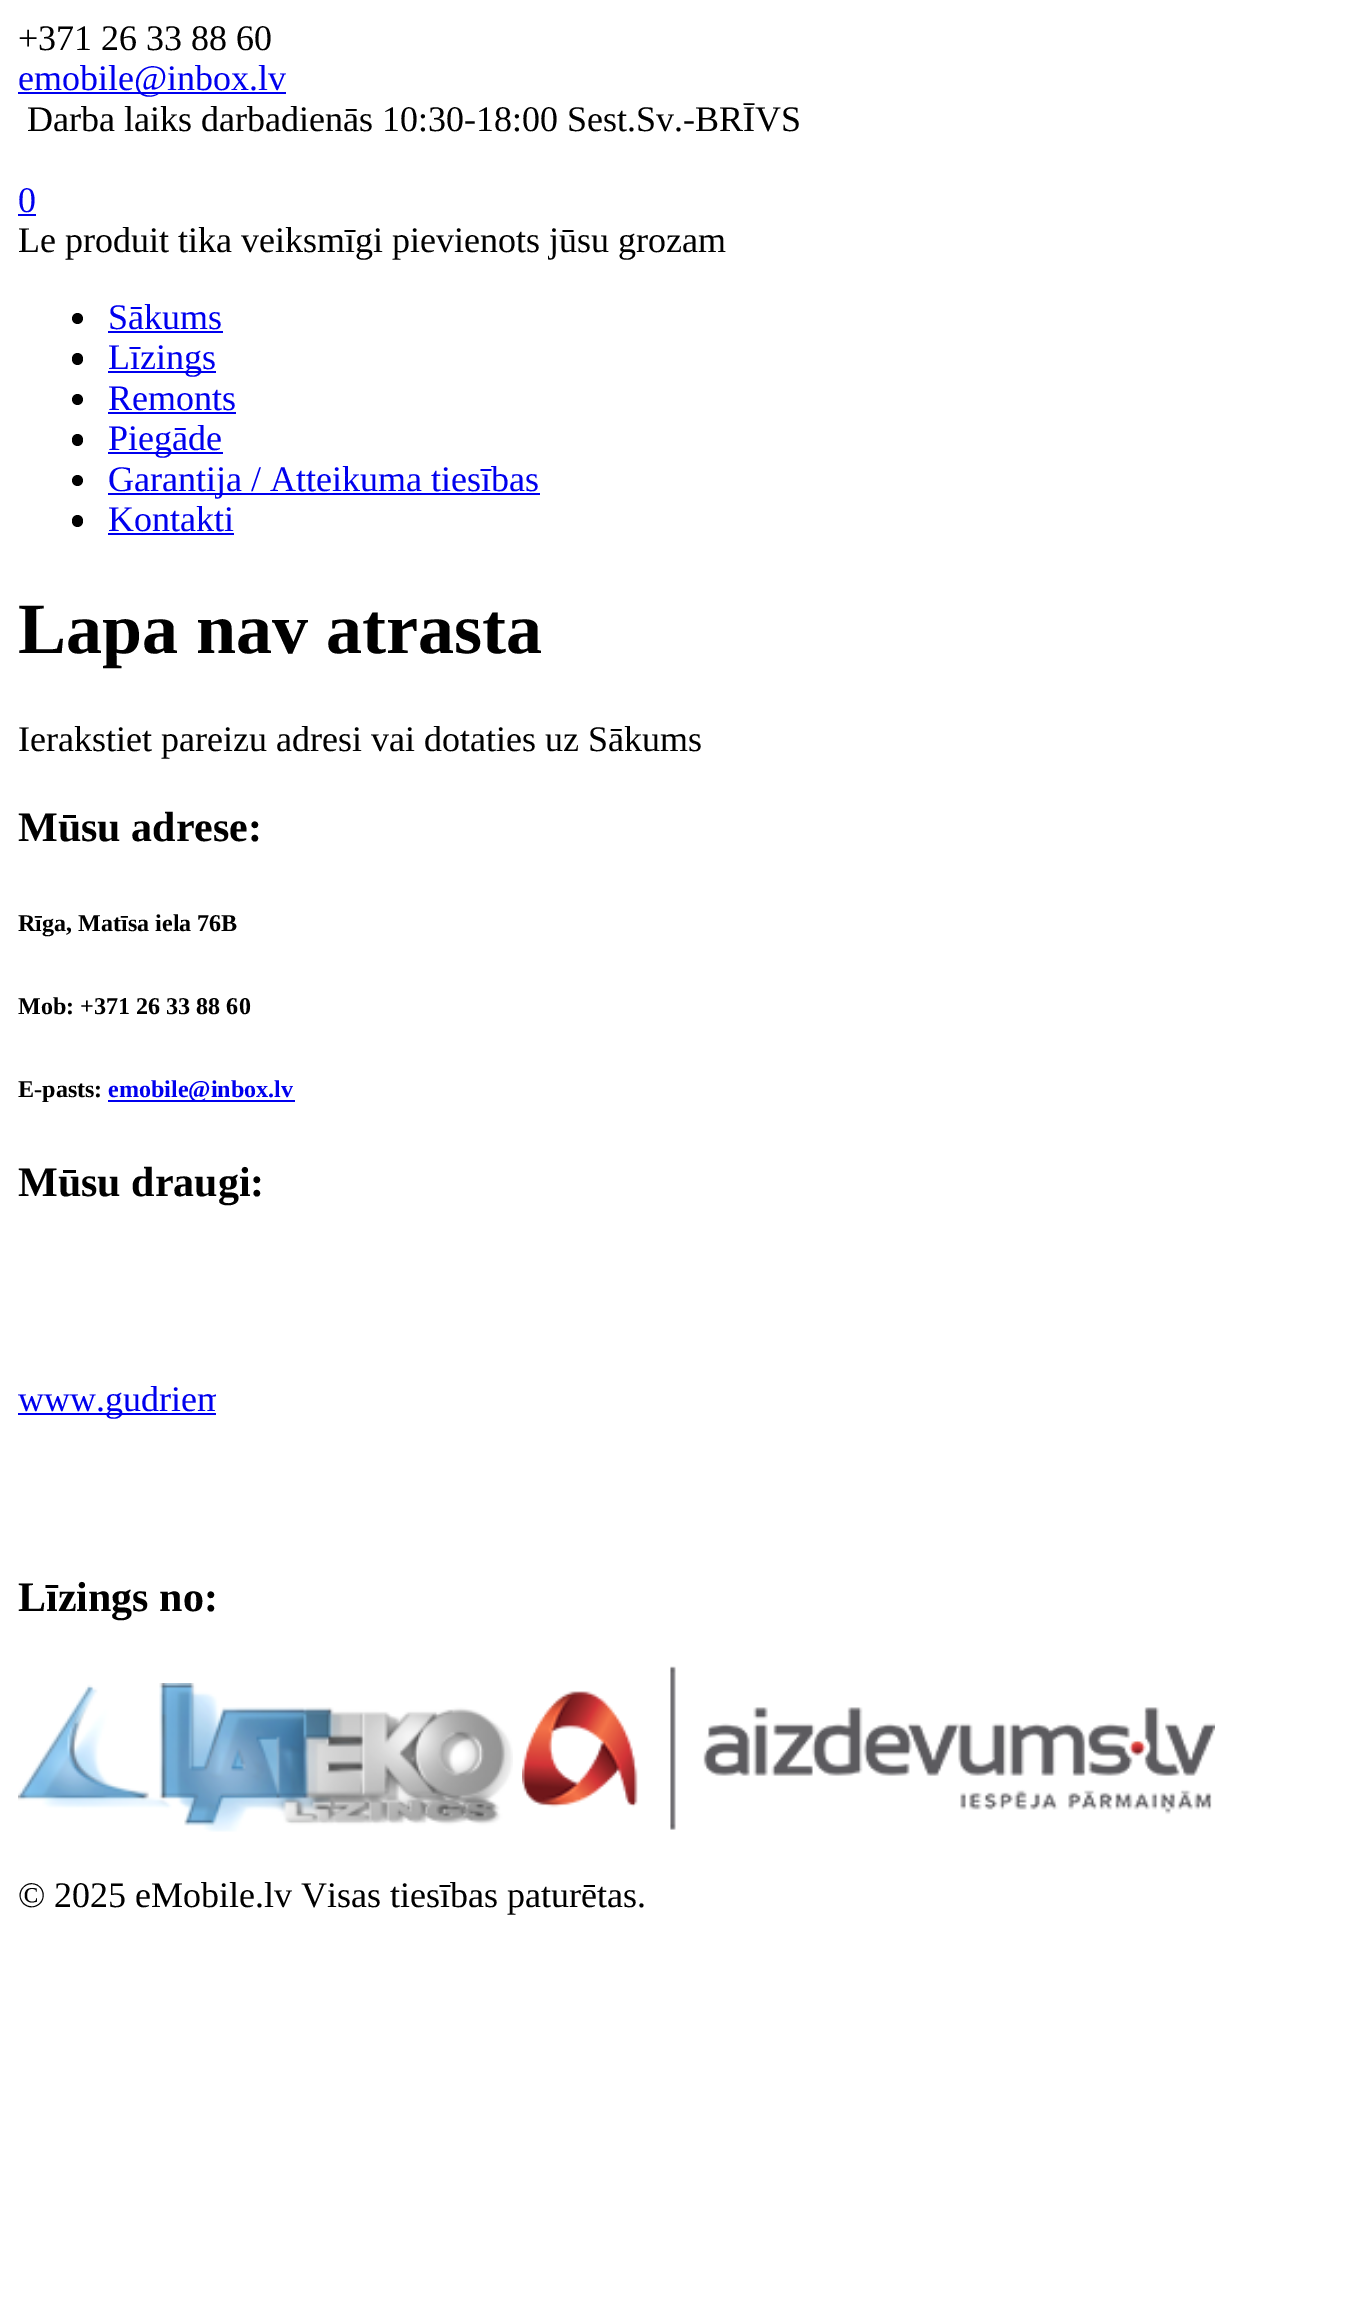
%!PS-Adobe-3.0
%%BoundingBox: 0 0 1350 2324
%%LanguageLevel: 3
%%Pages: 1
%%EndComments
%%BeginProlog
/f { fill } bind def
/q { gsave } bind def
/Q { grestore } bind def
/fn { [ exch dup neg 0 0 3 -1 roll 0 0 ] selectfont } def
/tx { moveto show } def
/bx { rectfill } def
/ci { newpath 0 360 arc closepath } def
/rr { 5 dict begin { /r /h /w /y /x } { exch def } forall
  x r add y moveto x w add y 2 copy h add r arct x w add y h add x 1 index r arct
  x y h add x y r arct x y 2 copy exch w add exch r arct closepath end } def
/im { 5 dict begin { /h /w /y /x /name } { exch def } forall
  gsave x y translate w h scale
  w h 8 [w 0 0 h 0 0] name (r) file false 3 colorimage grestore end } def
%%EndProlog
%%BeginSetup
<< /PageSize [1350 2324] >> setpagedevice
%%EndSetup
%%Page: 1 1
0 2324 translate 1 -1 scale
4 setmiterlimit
1 setgray
0 0 1350 2324 bx
/LiberationSerif-Regular 36 fn
0 setgray
(+371 26 33 88 60) 18 50 tx
0 0 0.933 setrgbcolor
18 92 268 2 bx
(emobile@inbox.lv) 18 90 tx
0 setgray
(Darba laiks darbadienās 10:30-18:00 Sest.Sv.-BRĪVS) 27 131 tx
0 0 0.933 setrgbcolor
(0) 18 212 tx
18 214 18 2 bx
0 setgray
(Le produit tika veiksmīgi pievienots jūsu grozam) 18 252 tx
77.5 318.5 5.5 ci f
0 0 0.933 setrgbcolor
(Sākums) 108 329 tx
108 331 115 2 bx
0 setgray
72 353 11 12 5.5 rr f
0 0 0.933 setrgbcolor
108 371 108 2 bx
(Līzings) 108 369 tx
0 setgray
77.5 399.5 5.5 ci f
0 0 0.933 setrgbcolor
(Remonts) 108 410 tx
108 412 128 2 bx
0 setgray
72 434 11 12 5.5 rr f
0 0 0.933 setrgbcolor
108 452 115 2 bx
(Piegāde) 108 450 tx
0 setgray
77.5 480.5 5.5 ci f
0 0 0.933 setrgbcolor
108 493 432 2 bx
(Garantija / Atteikuma tiesības) 108 491 tx
0 setgray
72 515 11 12 5.5 rr f
0 0 0.933 setrgbcolor
(Kontakti) 108 531 tx
108 533 126 2 bx
/LiberationSerif-Bold 72 fn
0 setgray
(Lapa nav atrasta) 18 653 tx
/LiberationSerif-Regular 36 fn
(Ierakstiet pareizu adresi vai dotaties uz Sākums) 18 751 tx
/LiberationSerif-Bold 42 fn
(Mūsu adrese:) 18 841 tx
/LiberationSerif-Bold 24.1 fn
(Rīga, Matīsa iela 76B) 18 931 tx
(Mob: +371 26 33 88 60) 18 1014 tx
(E-pasts:) 18 1097 tx
0 0 0.933 setrgbcolor
108 1100 187 2 bx
(emobile@inbox.lv) 108 1097 tx
/LiberationSerif-Bold 42 fn
0 setgray
(Mūsu draugi:) 18 1196 tx
0 0 0.933 setrgbcolor
18 1413 198 2 bx
q
18 1379 198 70 rectclip
/LiberationSerif-Regular 36 fn
(www.gudriem) 18 1411 tx
Q
0 setgray
(Līzings no:) 18 1611 tx
(image0.raw) 18 1683 495 149 im
(image1.raw) 522 1666 693 164 im
/LiberationSerif-Regular 36 fn
(© 2025 eMobile.lv Visas tiesības paturētas.) 18 1907 tx
showpage
%%EOF
